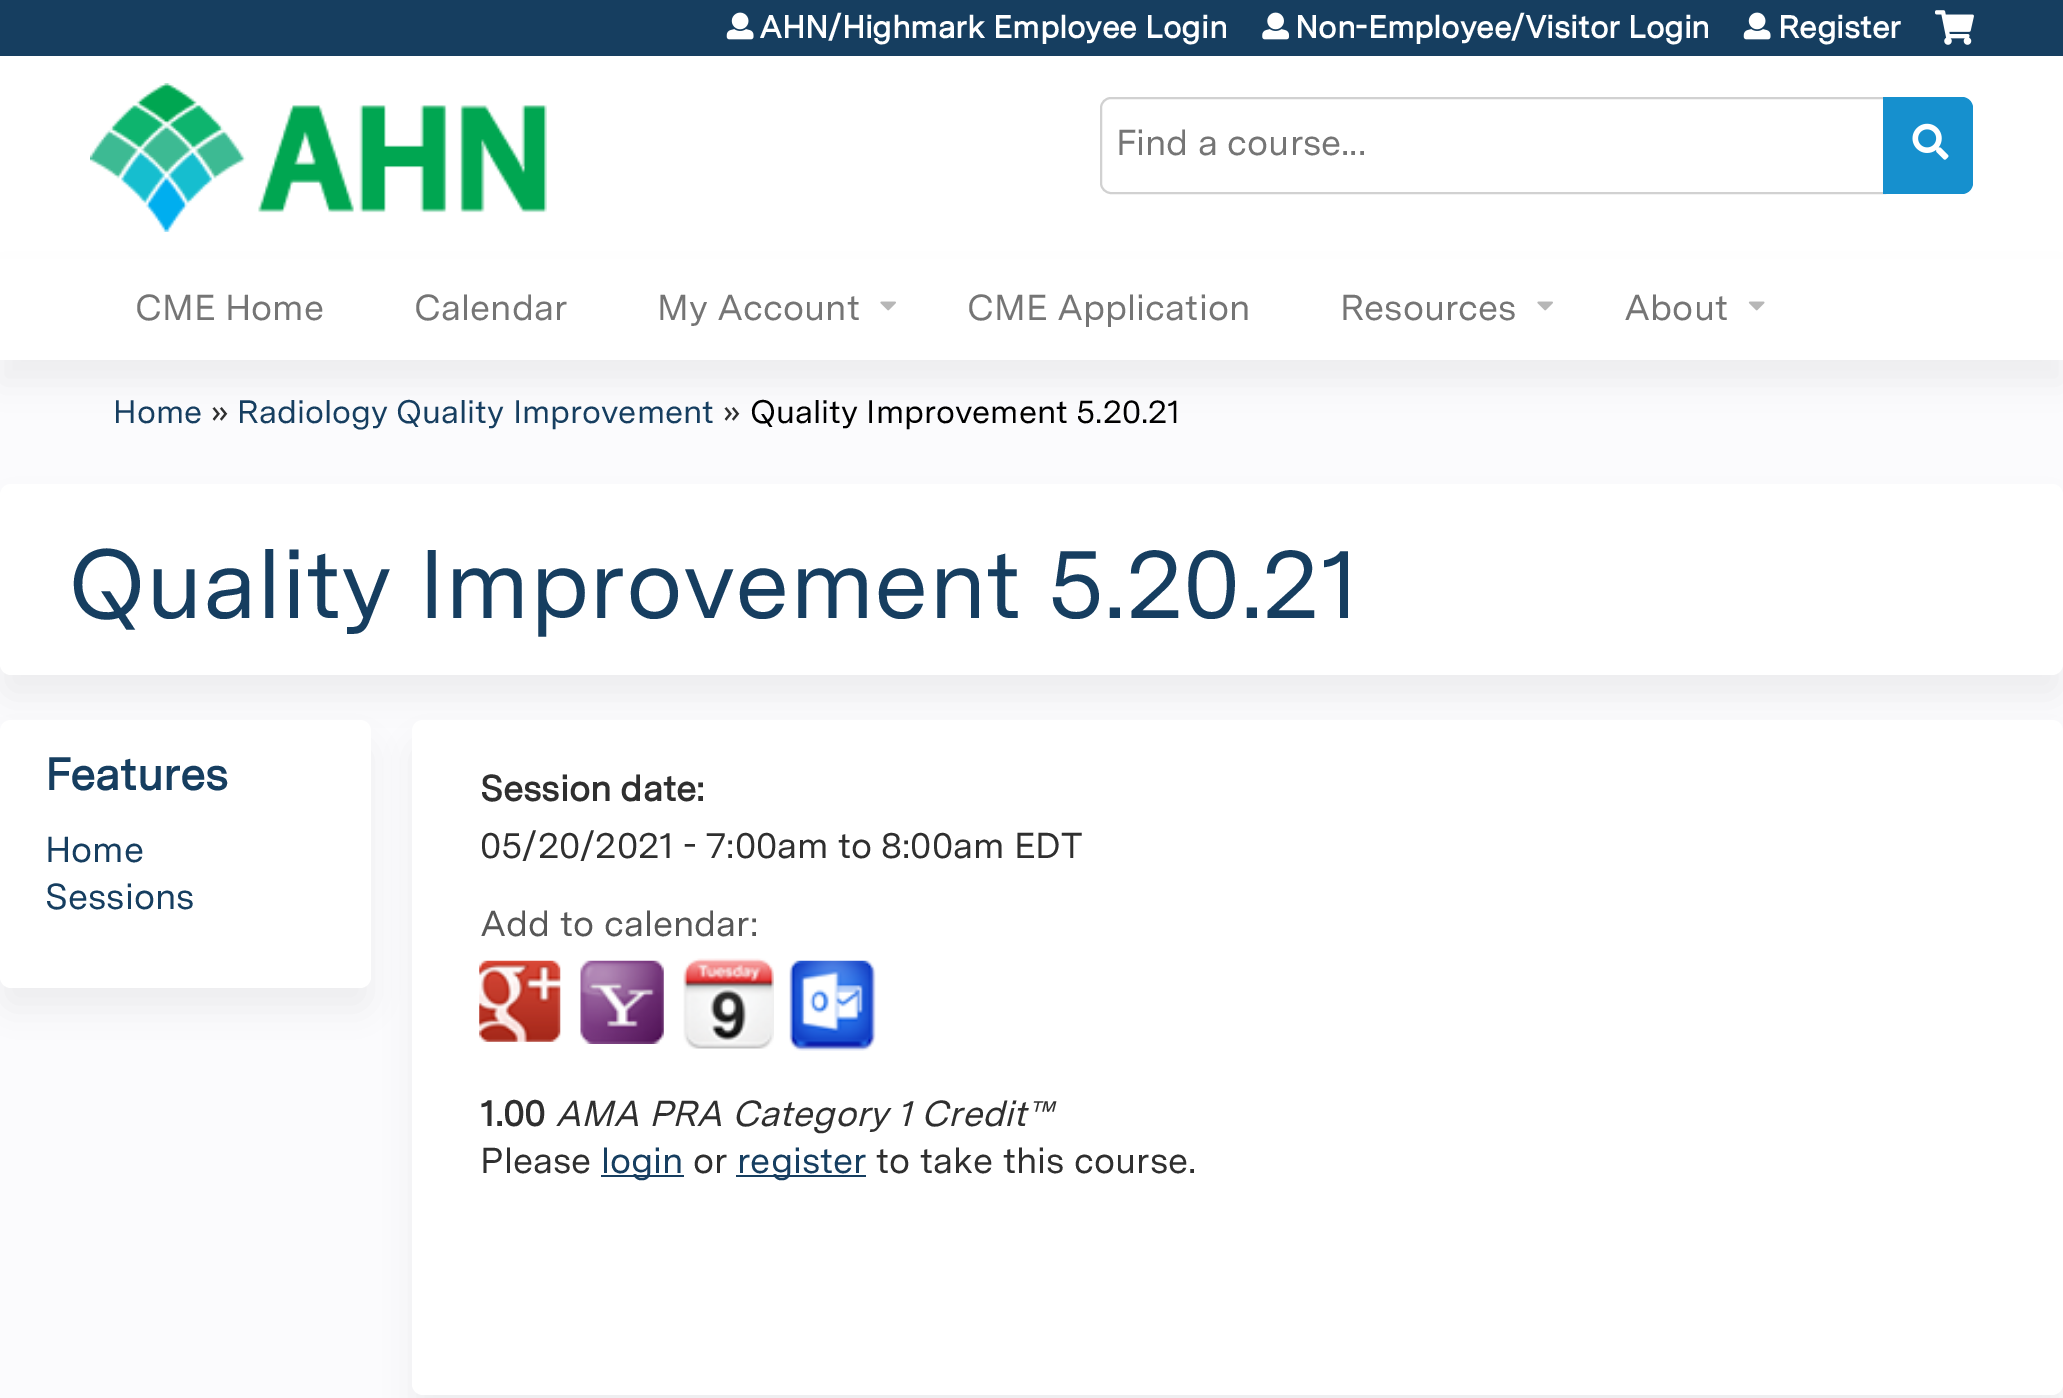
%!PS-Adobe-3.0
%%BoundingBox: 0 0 2063 1398
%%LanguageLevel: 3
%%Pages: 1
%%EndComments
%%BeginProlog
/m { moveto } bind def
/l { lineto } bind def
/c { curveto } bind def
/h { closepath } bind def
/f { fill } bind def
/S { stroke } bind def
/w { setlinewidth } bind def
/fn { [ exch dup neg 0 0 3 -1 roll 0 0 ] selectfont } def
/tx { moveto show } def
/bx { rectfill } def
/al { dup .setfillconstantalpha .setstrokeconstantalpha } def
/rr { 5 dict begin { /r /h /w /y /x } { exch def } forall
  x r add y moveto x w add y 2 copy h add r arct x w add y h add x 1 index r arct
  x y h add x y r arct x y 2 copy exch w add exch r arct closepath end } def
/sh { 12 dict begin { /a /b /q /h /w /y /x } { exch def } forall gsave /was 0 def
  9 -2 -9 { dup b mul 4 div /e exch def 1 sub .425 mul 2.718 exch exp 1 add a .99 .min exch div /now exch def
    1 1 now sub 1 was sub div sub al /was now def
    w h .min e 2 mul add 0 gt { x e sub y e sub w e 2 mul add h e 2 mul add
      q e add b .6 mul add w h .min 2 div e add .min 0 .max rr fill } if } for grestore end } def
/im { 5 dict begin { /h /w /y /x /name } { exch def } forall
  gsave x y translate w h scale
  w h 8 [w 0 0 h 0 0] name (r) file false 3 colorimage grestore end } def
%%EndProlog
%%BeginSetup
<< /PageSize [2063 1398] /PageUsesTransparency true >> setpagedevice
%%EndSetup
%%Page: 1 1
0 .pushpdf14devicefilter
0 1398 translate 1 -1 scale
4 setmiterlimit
0.984 0.984 0.992 setrgbcolor
0 0 2063 1398 bx
1 setgray
0 56 2063 203 bx
0.086 0.243 0.376 setrgbcolor
0 0 2063 56 bx
(image0.raw) 90 83 457 149 im
(image1.raw) 726 12 28 28 im
/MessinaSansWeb-Bold 31.5 fn
1 setgray
(AHN/Highmark Employee Login) 759 38 tx
(image2.raw) 1262 12 28 28 im
(Non-Employee/Visitor Login) 1295 38 tx
(image1.raw) 1743 12 28 28 im
(Register) 1778 38 tx
(image3.raw) 1935 10 39 35 im
0.82 setgray
2 w
1111 98 m 1885 98 l 1885 193 l 1111 193 l 1105.5 193 1101 188.5 1101 183 c 1101 108 l 1101 102.5 1105.5 98 1111 98 c h S
0.086 0.565 0.808 setrgbcolor
1883 97 m 1962 97 l 1968 97 1973 102 1973 108 c 1973 183 l 1973 189 1968 194 1962 194 c 1883 194 l h f
/MessinaSansWeb-Regular 36 fn
0.459 setgray
(Find a course...) 1116 155 tx
(image4.raw) 1912 123 37 37 im
0 setgray
0 281 2063 102 0 17 0.05 sh
1 setgray
0 259 2063 101 bx
0.459 setgray
(CME Home) 135 320 tx
(Calendar) 414 320 tx
(My Account) 657 320 tx
(image5.raw) 880 301 16 10 im
(CME Application) 967 320 tx
(Resources) 1340 320 tx
(image5.raw) 1537 301 16 10 im
(About) 1624 320 tx
(image6.raw) 1748 301 17 10 im
/MessinaSansWeb-Regular 32.4 fn
0.086 0.243 0.376 setrgbcolor
(Home) 113 423 tx
0.184 setgray
(») 210 423 tx
0.086 0.243 0.376 setrgbcolor
(Radiology Quality Improvement) 237 423 tx
0.184 setgray
(») 722 423 tx
0 setgray
(Quality Improvement 5.20.21) 750 423 tx
0 506 2063 192 11 17 0.05 sh
1 setgray
0 484 2063 191 11 rr f
/MessinaSansWeb-Regular 97.25 fn
0.086 0.243 0.376 setrgbcolor
(Quality Improvement 5.20.21) 68 618 tx
0 setgray
412 743 1651 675 11 17 0.05 sh
1 setgray
412 720 1651 675 11 rr f
0 setgray
0 743 371 267 11 17 0.05 sh
1 setgray
0 720 371 268 11 rr f
/MessinaSansWeb-Bold 45 fn
0.086 0.243 0.376 setrgbcolor
(Features) 45 790 tx
/MessinaSansWeb-Regular 36 fn
(Home) 45 862 tx
(Sessions) 45 909 tx
/MessinaSansWeb-Bold 36 fn
0.184 setgray
(Session date:) 480 801 tx
/MessinaSansWeb-Regular 36 fn
(05/20/2021 - 7:00am to 8:00am EDT) 480 858 tx
0.341 setgray
(Add to calendar:) 480 936 tx
(image7.raw) 479 960 82 82 im
(image8.raw) 580 960 84 84 im
(image9.raw) 683 958 91 91 im
(image10.raw) 789 960 87 91 im
/MessinaSansWeb-Bold 36 fn
0.184 setgray
(1.00) 480 1126 tx
/MessinaSansWeb-Italic 36 fn
(AMA PRA Category 1 Credit™) 555 1126 tx
/MessinaSansWeb-Regular 36 fn
(Please) 480 1173 tx
0.086 0.243 0.376 setrgbcolor
601 1175 83 2 bx
(login) 601 1173 tx
0.184 setgray
(or) 693 1173 tx
0.086 0.243 0.376 setrgbcolor
736 1175 130 2 bx
(register) 737 1173 tx
0.184 setgray
(to take this course.) 876 1173 tx
.poppdf14devicefilter showpage
%%EOF
